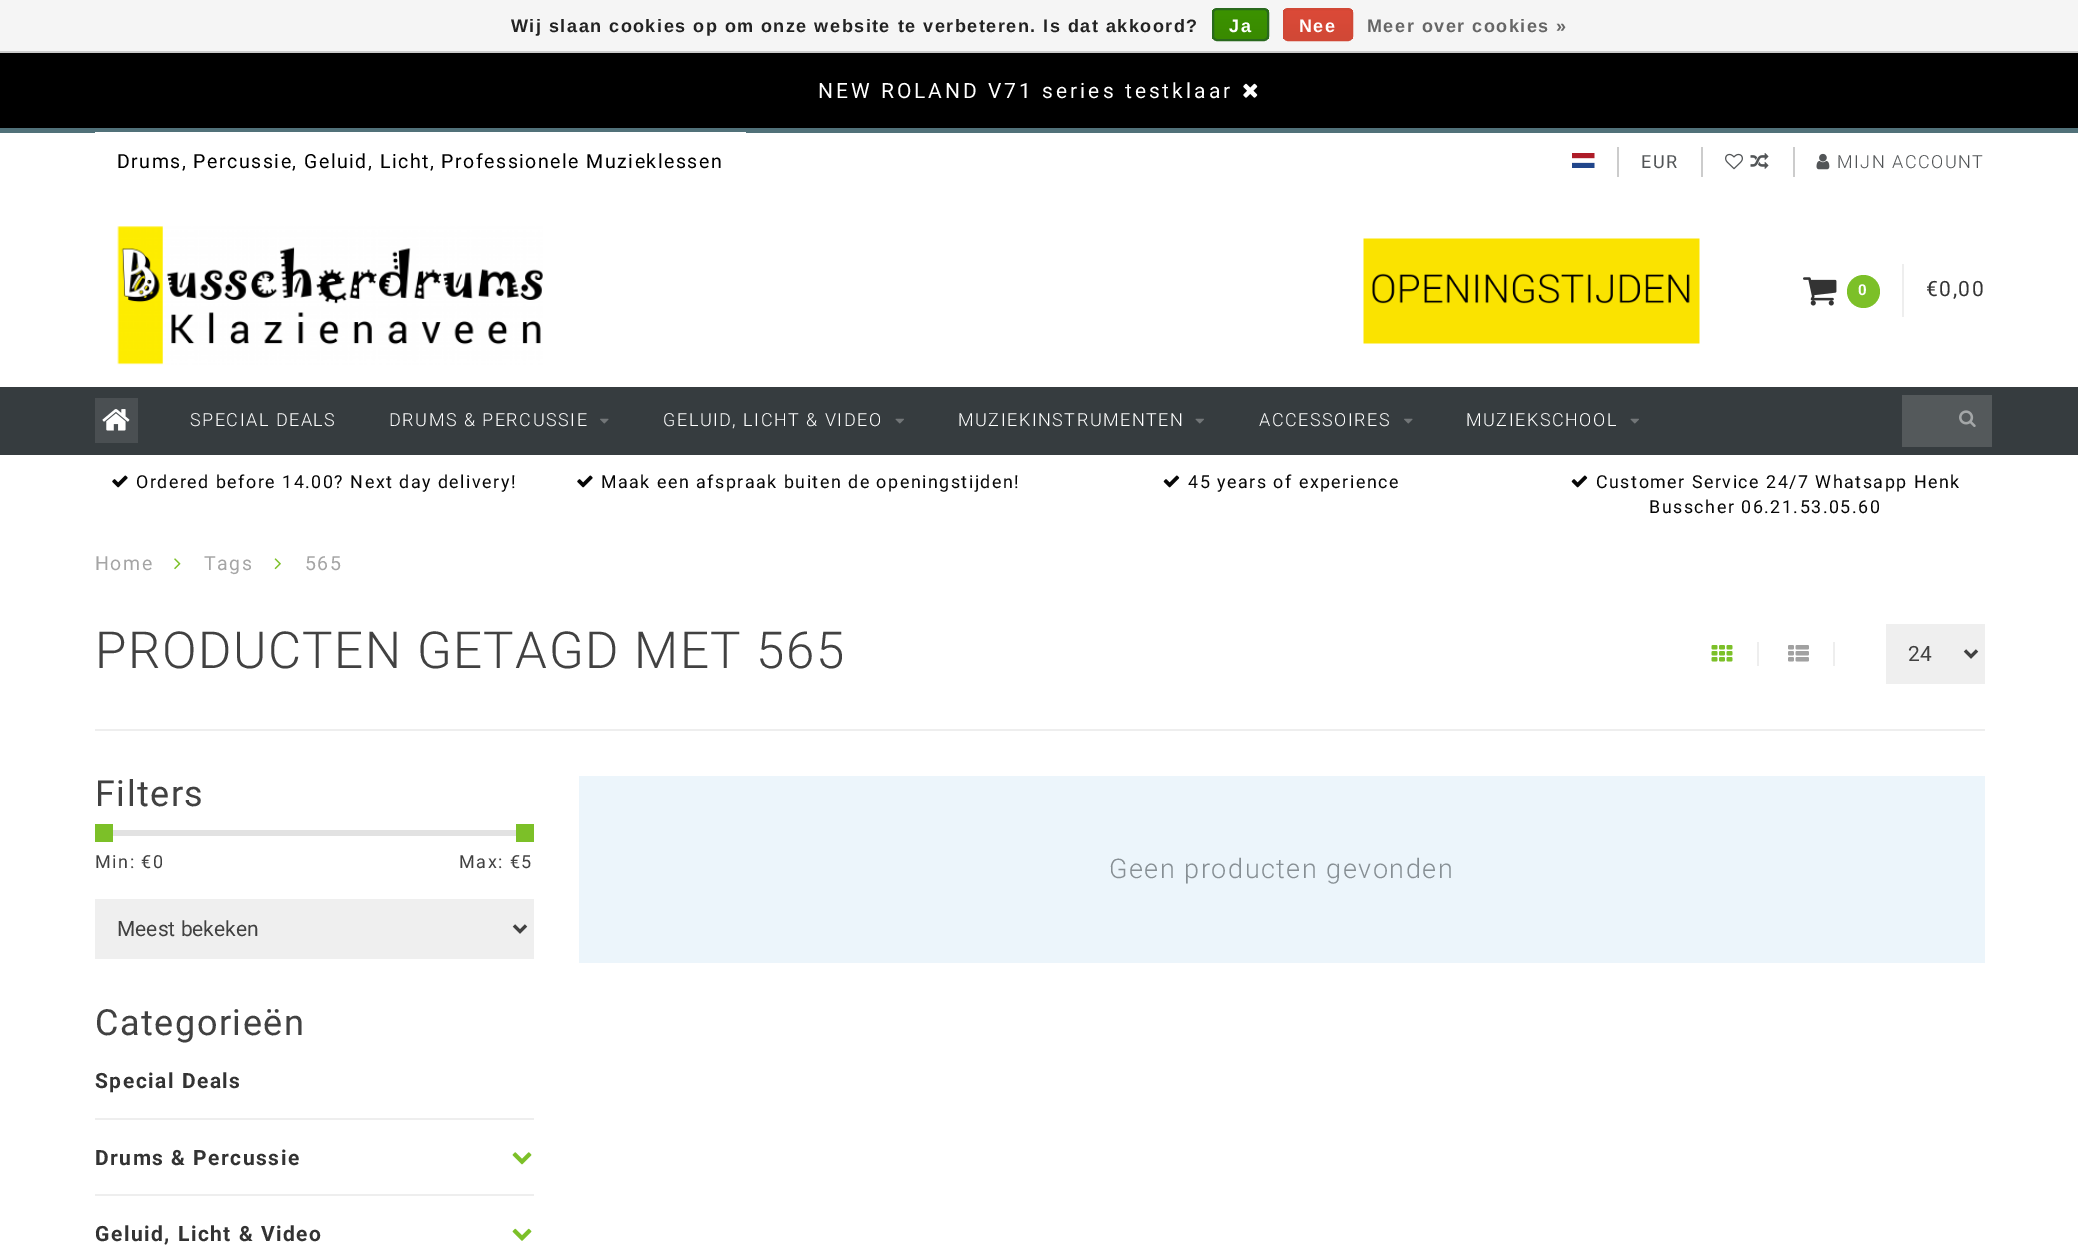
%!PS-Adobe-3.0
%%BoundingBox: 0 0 2078 1253
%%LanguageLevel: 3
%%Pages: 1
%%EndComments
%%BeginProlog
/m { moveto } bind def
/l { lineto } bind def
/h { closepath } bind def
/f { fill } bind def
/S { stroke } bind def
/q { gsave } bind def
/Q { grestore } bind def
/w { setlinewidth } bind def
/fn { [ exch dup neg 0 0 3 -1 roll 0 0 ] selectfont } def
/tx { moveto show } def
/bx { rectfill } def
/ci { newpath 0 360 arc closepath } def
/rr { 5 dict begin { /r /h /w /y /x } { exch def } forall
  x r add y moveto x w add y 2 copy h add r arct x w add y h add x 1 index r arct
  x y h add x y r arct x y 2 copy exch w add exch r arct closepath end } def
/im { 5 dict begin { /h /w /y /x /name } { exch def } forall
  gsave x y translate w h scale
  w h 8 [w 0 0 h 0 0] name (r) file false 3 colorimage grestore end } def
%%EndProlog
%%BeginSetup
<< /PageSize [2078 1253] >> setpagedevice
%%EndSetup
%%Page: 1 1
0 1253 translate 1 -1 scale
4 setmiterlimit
1 setgray
0 0 2078 1253 bx
0.961 setgray
0 0 2078 51 bx
0.8 setgray
0 51 2078 2 bx
/LiberationSans-Bold 18 fn
0.133 setgray
511 32 m 1.5 0 (Wij slaan cookies op om onze website te verbeteren. Is dat akkoord?) ashow
q
1212 8 57 33 5 rr clip newpath
q 1212 9 m 1269 9 l 1269 39 l 1212 39 l h clip newpath
<< /ShadingType 2 /ColorSpace /DeviceRGB /Coords [1241 9 1241 39] /Extend [true true] /Function << /FunctionType 2 /Domain [0 1] /C0 [0.235 0.576 0] /C1 [0.224 0.541 0] /N 1 >> >> shfill Q
Q
0.161 0.412 0.114 setrgbcolor
2 w
1213 9 55 31 4 rr S
1 setgray
1229 32 m 1.5 0 (Ja) ashow
q
1283 8 70 33 5 rr clip newpath
q 1283 9 m 1353 9 l 1353 39 l 1283 39 l h clip newpath
<< /ShadingType 2 /ColorSpace /DeviceRGB /Coords [1318 9 1318 39] /Extend [true true] /Function << /FunctionType 2 /Domain [0 1] /C0 [0.863 0.29 0.22] /C1 [0.82 0.282 0.212] /N 1 >> >> shfill Q
Q
0.82 0.282 0.212 setrgbcolor
1284 9 68 31 4 rr S
1 setgray
1299 32 m 1.5 0 (Nee) ashow
0.4 setgray
1367 32 m 1.5 0 (Meer over cookies ») ashow
0 setgray
0 53 2078 75 bx
/Roboto-Regular 21 fn
1 setgray
818 98 m 3 0 (NEW ROLAND V71 series testklaar) ashow
(image0.raw) 1243 83 15 15 im
0.318 0.443 0.475 setrgbcolor
0 128 2078 5 bx
1 setgray
95 132 651 1 bx
/Roboto-Regular 19.5 fn
0 setgray
117 168 m 1.5 0 (Drums, Percussie, Geluid, Licht, Professionele Muzieklessen) ashow
0.8 setgray
1617 147 2 30 bx
(image1.raw) 1572 153 23 15 im
1701 147 2 30 bx
/Roboto-Regular 18 fn
0.322 0.333 0.341 setrgbcolor
1641 168 m 1.5 0 (EUR) ashow
0.8 setgray
1793 147 2 30 bx
(image2.raw) 1725 153 18 17 im
(image3.raw) 1750 153 19 16 im
(image4.raw) 1816 153 14 17 im
/Roboto-Light 18 fn
0.322 0.333 0.341 setrgbcolor
1837 168 m 1.5 0 (MIJN ACCOUNT) ashow
(image5.raw) 117 226 426 139 im
(image6.raw) 1363 238 337 106 im
(image7.raw) 1803 277 34 29 im
0.486 0.753 0.157 setrgbcolor
1863.5 291.5 16.5 ci f
/Roboto-Bold 15 fn
1 setgray
1858 295 m 1.5 0 (0) ashow
0.933 setgray
1902 264 2 53 bx
/Roboto-Regular 21 fn
0.2 setgray
1926 296 m 1.5 0 (€0,00) ashow
0.212 0.235 0.247 setrgbcolor
0 387 2078 68 bx
0.29 0.31 0.322 setrgbcolor
95 398 43 45 bx
(image8.raw) 102 409 28 22 im
/Roboto-Light 18 fn
1 setgray
190 426 m 1.5 0 (SPECIAL DEALS) ashow
389 426 m 1.5 0 (DRUMS & PERCUSSIE) ashow
(image9.raw) 600 418 9 6 im
663 426 m 1.5 0 (GELUID, LICHT & VIDEO) ashow
(image10.raw) 895 418 9 6 im
958 426 m 1.5 0 (MUZIEKINSTRUMENTEN) ashow
(image10.raw) 1195 418 9 6 im
1259 426 m 1.5 0 (ACCESSOIRES) ashow
(image9.raw) 1404 418 9 6 im
1466 426 m 1.5 0 (MUZIEKSCHOOL) ashow
(image10.raw) 1630 418 9 6 im
0.329 0.349 0.357 setrgbcolor
1902 395 90 52 bx
(image11.raw) 1959 410 17 17 im
(image12.raw) 112 475 16 13 im
/Roboto-Regular 17.85 fn
0.027 setgray
136 488 m 1.5 0 (Ordered before 14.00? Next day delivery!) ashow
(image12.raw) 577 475 16 13 im
601 488 m 1.5 0 (Maak een afspraak buiten de openingstijden!) ashow
(image13.raw) 1163 475 17 13 im
1188 488 m 1.5 0 (45 years of experience) ashow
(image13.raw) 1571 475 17 13 im
1596 488 m 1.5 0 (Customer Service 24/7 Whatsapp Henk) ashow
1649 513 m 1.5 0 (Busscher 06.21.53.05.60) ashow
/Roboto-Regular 19.5 fn
0.647 setgray
95 570 m 1.5 0 (Home) ashow
(image14.raw) 174 558 7 12 im
204 570 m 1.5 0 (Tags) ashow
(image15.raw) 274 558 7 12 im
305 570 m 1.5 0 (565) ashow
/Roboto-Light 51 fn
0.255 setgray
95 668 m 1.5 0 (PRODUCTEN GETAGD MET 565) ashow
0.933 setgray
1757 642 2 24 bx
(image16.raw) 1711 645 22 17 im
1833 642 2 24 bx
(image17.raw) 1788 645 21 17 im
0.937 setgray
1886 624 99 60 bx
0.255 setgray
3 w
1965 650.5 m 1971 656.5 l 1977 650.5 l S
/Roboto-Regular 21 fn
(24) 1908 661 tx
0.933 setgray
95 729 1890 2 bx
/Roboto-Regular 36 fn
0.255 setgray
95 806 m 1.5 0 (Filters) ashow
0.886 setgray
110 830 406 6 bx
0.486 0.753 0.157 setrgbcolor
95 824 18 18 bx
516 824 18 18 bx
/Roboto-Regular 18 fn
0.255 setgray
95 868 m 1.5 0 (Min: €0) ashow
459 868 m 1.5 0 (Max: €5) ashow
0.937 setgray
95 899 439 60 bx
0.255 setgray
514 925.5 m 520 931.5 l 526 925.5 l S
/Roboto-Regular 21 fn
(Meest bekeken) 117 936 tx
/Roboto-Regular 36 fn
95 1035 m 1.5 0 (Categorieën) ashow
0.933 setgray
95 1118 439 2 bx
/Roboto-Bold 21 fn
0.2 setgray
95 1088 m 1.5 0 (Special Deals) ashow
0.933 setgray
95 1194 439 2 bx
0.2 setgray
95 1165 m 1.5 0 (Drums & Percussie) ashow
(image18.raw) 512 1152 20 13 im
95 1241 m 1.5 0 (Geluid, Licht & Video) ashow
(image19.raw) 512 1228 20 13 im
0.925 0.961 0.984 setrgbcolor
579 776 1406 187 bx
/Roboto-Light 27 fn
0.529 0.561 0.58 setrgbcolor
1109 878 m 1.5 0 (Geen producten gevonden) ashow
showpage
%%EOF
